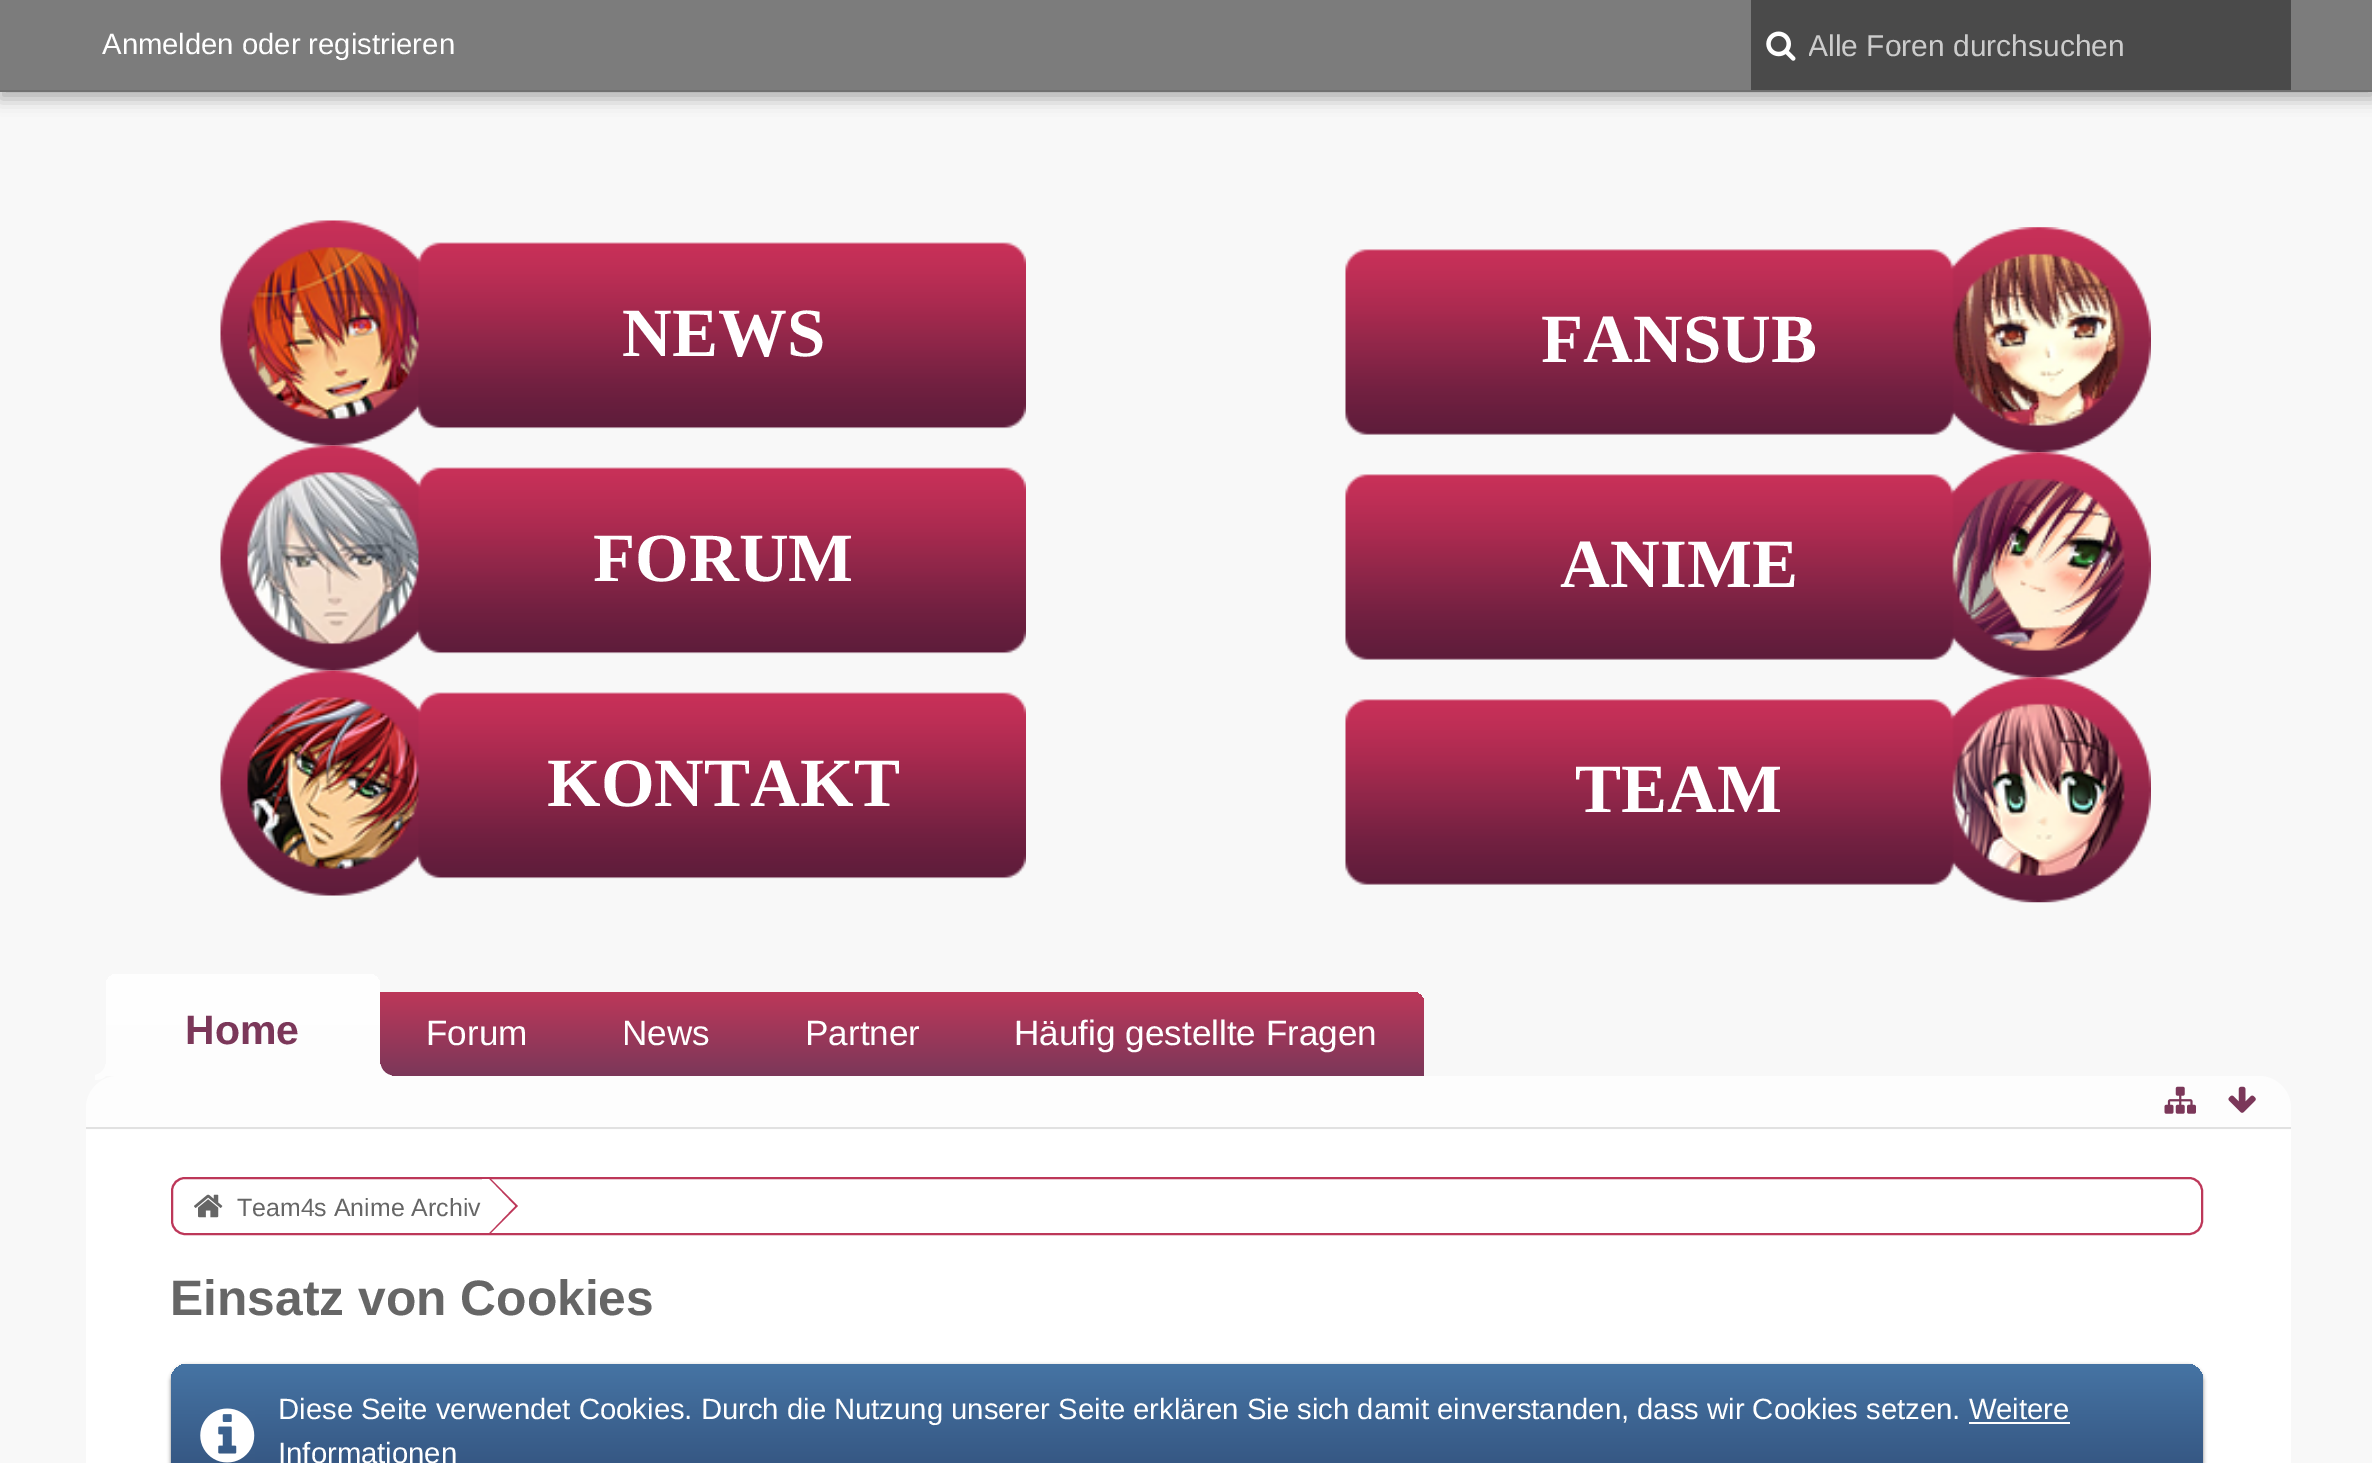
%!PS-Adobe-3.0
%%BoundingBox: 0 0 2372 1463
%%LanguageLevel: 3
%%Pages: 1
%%EndComments
%%BeginProlog
/m { moveto } bind def
/l { lineto } bind def
/c { curveto } bind def
/h { closepath } bind def
/f { fill } bind def
/S { stroke } bind def
/q { gsave } bind def
/Q { grestore } bind def
/w { setlinewidth } bind def
/fn { [ exch dup neg 0 0 3 -1 roll 0 0 ] selectfont } def
/tx { moveto show } def
/bx { rectfill } def
/al { dup .setfillconstantalpha .setstrokeconstantalpha } def
/rr { 5 dict begin { /r /h /w /y /x } { exch def } forall
  x r add y moveto x w add y 2 copy h add r arct x w add y h add x 1 index r arct
  x y h add x y r arct x y 2 copy exch w add exch r arct closepath end } def
/sh { 12 dict begin { /a /b /q /h /w /y /x } { exch def } forall gsave /was 0 def
  9 -2 -9 { dup b mul 4 div /e exch def 1 sub .425 mul 2.718 exch exp 1 add a .99 .min exch div /now exch def
    1 1 now sub 1 was sub div sub al /was now def
    w h .min e 2 mul add 0 gt { x e sub y e sub w e 2 mul add h e 2 mul add
      q e add b .6 mul add w h .min 2 div e add .min 0 .max rr fill } if } for grestore end } def
/im { 5 dict begin { /h /w /y /x /name } { exch def } forall
  gsave x y translate w h scale
  w h 8 [w 0 0 h 0 0] name (r) file false 3 colorimage grestore end } def
%%EndProlog
%%BeginSetup
<< /PageSize [2372 1463] /PageUsesTransparency true >> setpagedevice
%%EndSetup
%%Page: 1 1
0 .pushpdf14devicefilter
0 1463 translate 1 -1 scale
4 setmiterlimit
0.973 setgray
0 0 2372 1463 bx
0 setgray
0 7 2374 92 0 8 0.3 sh
0.486 setgray
0 0 2372 90 bx
0.439 setgray
0 90 2372 2 bx
/LiberationSans-Regular 29.25 fn
1 setgray
(Anmelden oder registrieren) 102 54 tx
0.29 setgray
1751 0 540 90 bx
(image0.raw) 1766 31 30 30 im
q
1809 29 455 34 rectclip
/LiberationSans-Regular 30 fn
0.8 setgray
(Alle Foren durchsuchen) 1808 56 tx
Q
(image1.raw) 220 220 806 226 im
/LiberationSerif-Bold 69 fn
1 setgray
(NEWS) 622 356 tx
(image2.raw) 220 445 806 226 im
(FORUM) 593 581 tx
(image3.raw) 220 670 806 226 im
(KONTAKT) 547 806 tx
(image4.raw) 1345 227 806 226 im
(FANSUB) 1541 362 tx
(image5.raw) 1345 452 806 226 im
(ANIME) 1560 587 tx
(image6.raw) 1345 677 806 226 im
(TEAM) 1575 812 tx
q 117 992 m 1413 992 l 1419 992 1424 997 1424 1003 c 1424 1076 l 106 1076 l 106 1003 l 106 997 111 992 117 992 c h clip newpath
<< /ShadingType 2 /ColorSpace /DeviceRGB /Coords [765 992 765 1076] /Extend [true true] /Function << /FunctionType 2 /Domain [0 1] /C0 [0.741 0.216 0.349] /C1 [0.482 0.216 0.349] /N 1 >> >> shfill Q
q 117 974 m 369 974 l 375 974 380 979 380 985 c 380 1076 l 106 1076 l 106 985 l 106 979 111 974 117 974 c h clip newpath
<< /ShadingType 2 /ColorSpace /DeviceRGB /Coords [243 974 243 1076] /Extend [true true] /Function << /FunctionType 2 /Domain [0 1] /C0 [1 1 1] /C1 [0.992 0.992 0.992] /N 1 >> >> shfill Q
/LiberationSans-Bold 41 fn
0.482 0.216 0.349 setrgbcolor
(Home) 185 1044 tx
0.992 setgray
118 1076 m 2259 1076 l 2276.5 1076 2291 1090.5 2291 1108 c 2291 1130 l 86 1130 l 86 1108 l 86 1090.5 100.5 1076 118 1076 c h f
95 1075 m 95 1080 l 105 1080 110 1073.5 110 1064 c 105.5 1064 l 105 1069.5 100.5 1074 95 1075 c h f
376 1064 m 376 1074.5 381.5 1080 392 1080 c 392 1075.5 l 386 1074.5 381.5 1070 380.5 1064 c h f
/LiberationSans-Regular 35.1 fn
1 setgray
(Forum) 426 1045 tx
(News) 622 1045 tx
(Partner) 805 1045 tx
(Häufig gestellte Fragen) 1014 1045 tx
0.882 setgray
86 1127 2205 2 bx
(image7.raw) 2164 1086 32 28 im
(image8.raw) 2228 1086 28 27 im
1 setgray
86 1130 2205 333 bx
0.741 0.216 0.349 setrgbcolor
2 w
172 1178 2030 56 13 rr S
(image9.raw) 194 1194 29 24 im
/LiberationSans-Regular 24.9 fn
0.4 setgray
(Team4s Anime Archiv) 237 1216 tx
0.741 0.216 0.349 setrgbcolor
491 1179 m 518 1206 l 491 1233 l 484 1233 l 484 1179 l h f
1 setgray
489 1179 m 515 1206 l 489 1233 l 482 1233 l 482 1179 l h f
/LiberationSans-Bold 49.75 fn
0.4 setgray
(Einsatz von Cookies) 170 1315 tx
0 setgray
171 1366 2032 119 16 2 0.5 sh
q 171 1364 2032 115 16 rr clip newpath
<< /ShadingType 2 /ColorSpace /DeviceRGB /Coords [1187 1364 1187 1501] /Extend [true true] /Function << /FunctionType 2 /Domain [0 1] /C0 [0.275 0.455 0.643] /C1 [0.188 0.302 0.467] /N 1 >> >> shfill Q
(image10.raw) 200 1408 55 55 im
/LiberationSans-Regular 29.25 fn
1 setgray
(Diese Seite verwendet Cookies. Durch die Nutzung unserer Seite erklären Sie sich damit einverstanden, dass wir Cookies setzen. Weitere) 278 1419 tx
(Informationen) 278 1463 tx
1969 1422 101 2 bx
.poppdf14devicefilter showpage
%%EOF
